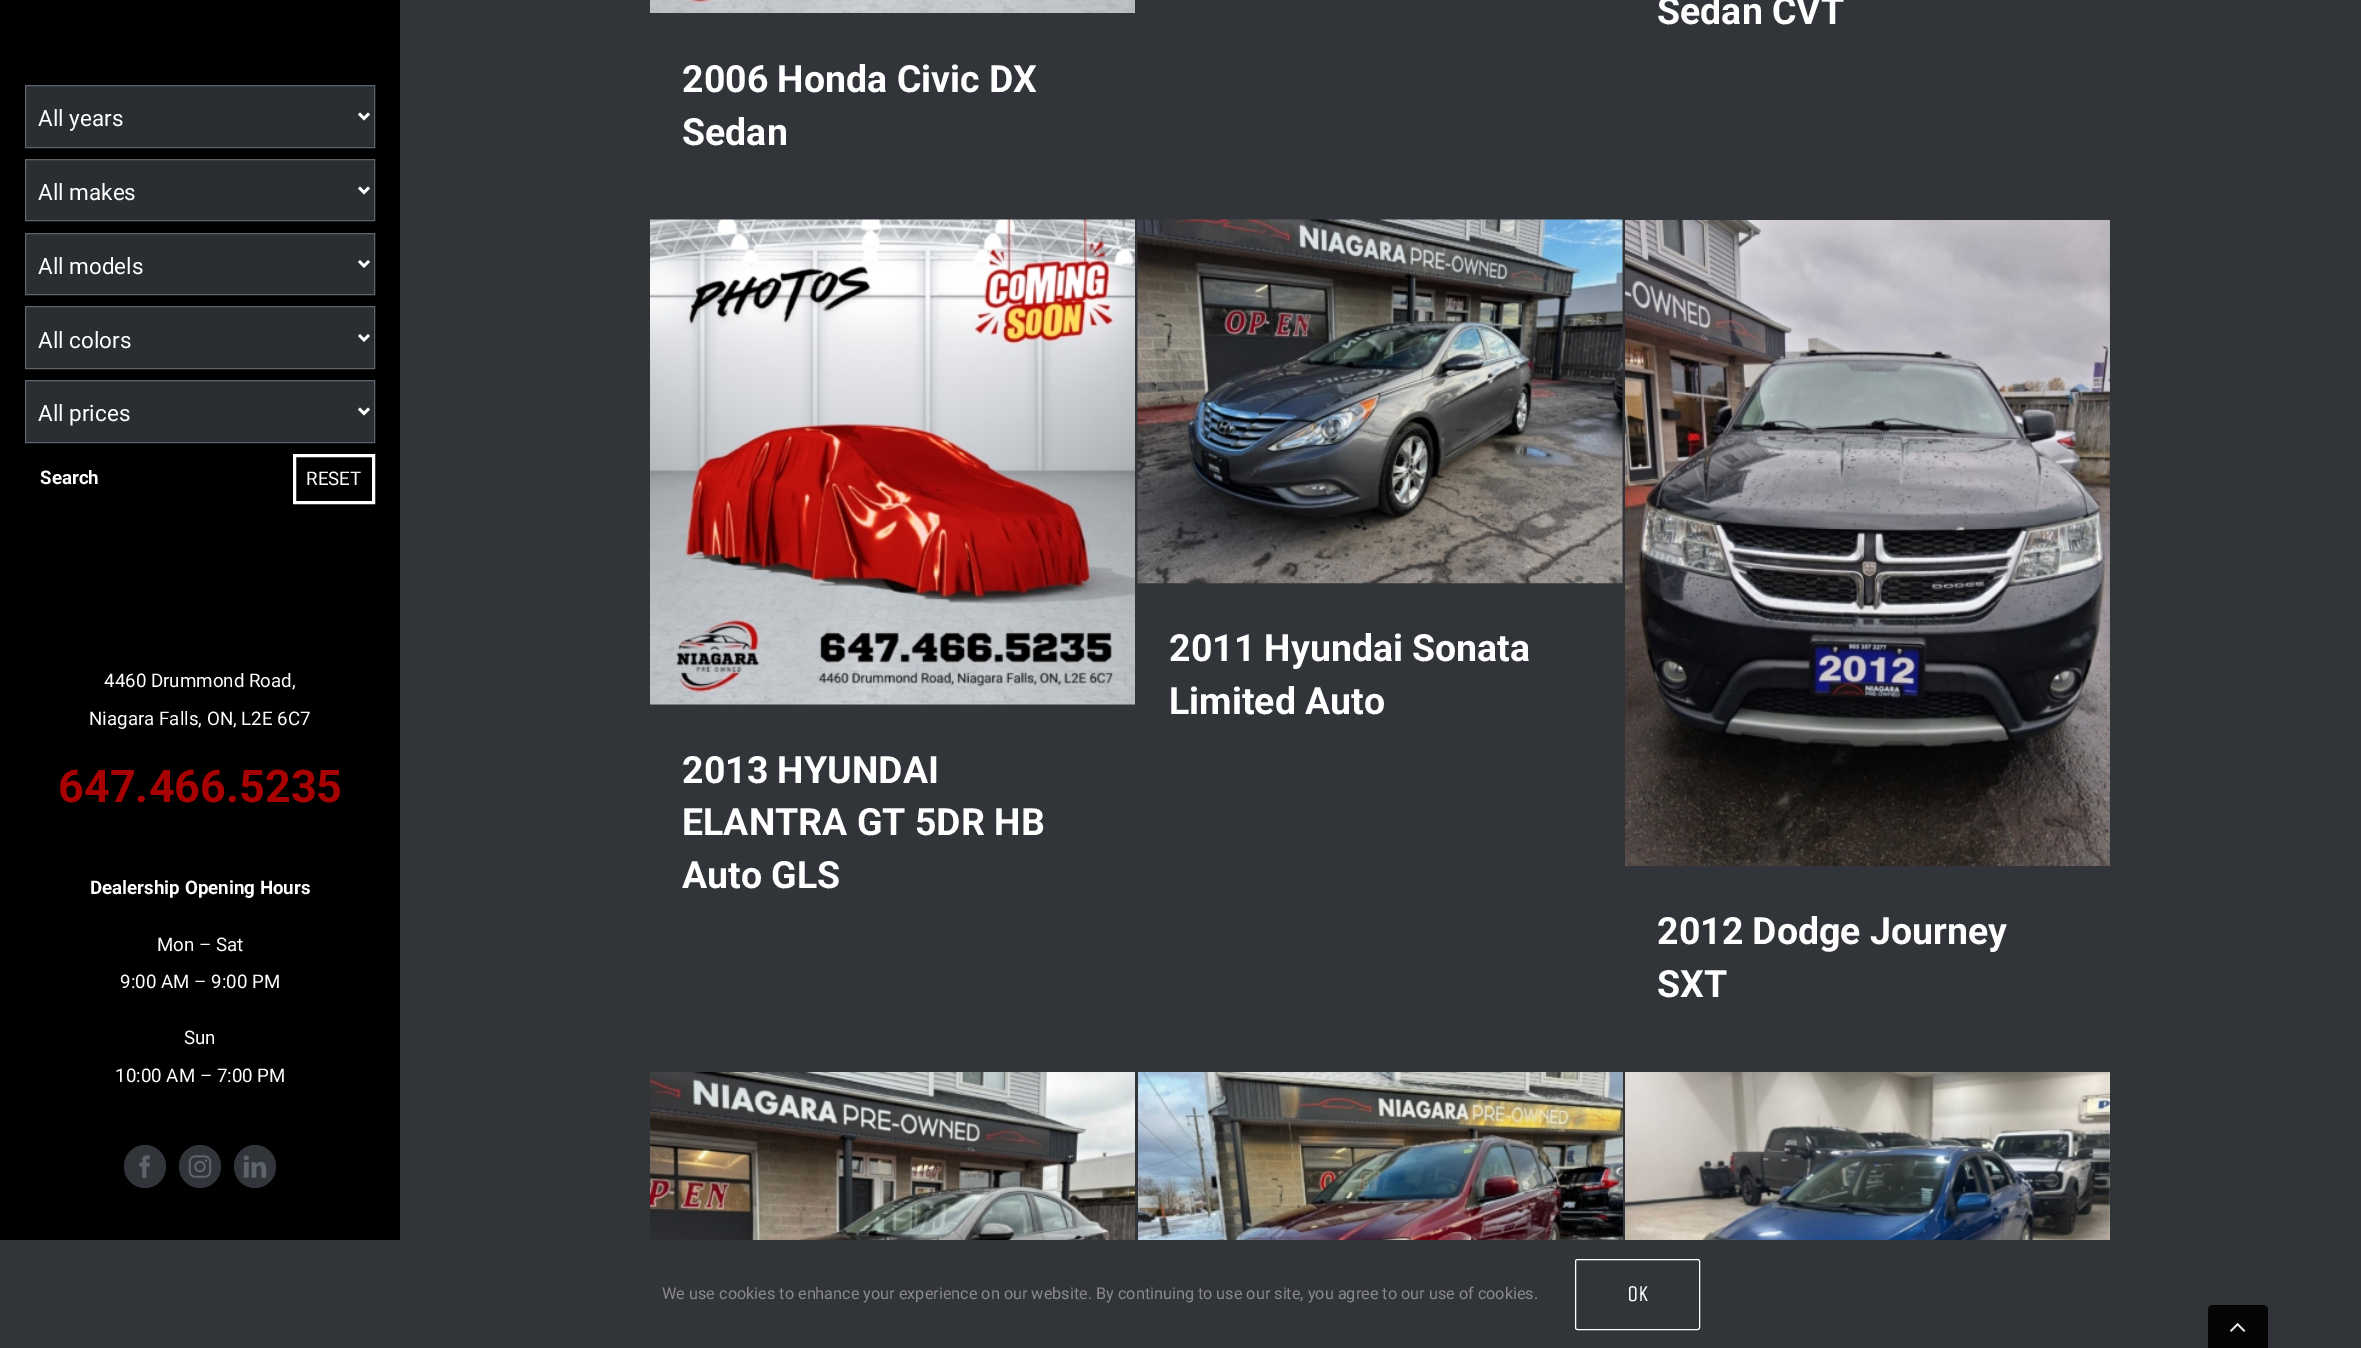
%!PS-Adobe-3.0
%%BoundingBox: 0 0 2361 1348
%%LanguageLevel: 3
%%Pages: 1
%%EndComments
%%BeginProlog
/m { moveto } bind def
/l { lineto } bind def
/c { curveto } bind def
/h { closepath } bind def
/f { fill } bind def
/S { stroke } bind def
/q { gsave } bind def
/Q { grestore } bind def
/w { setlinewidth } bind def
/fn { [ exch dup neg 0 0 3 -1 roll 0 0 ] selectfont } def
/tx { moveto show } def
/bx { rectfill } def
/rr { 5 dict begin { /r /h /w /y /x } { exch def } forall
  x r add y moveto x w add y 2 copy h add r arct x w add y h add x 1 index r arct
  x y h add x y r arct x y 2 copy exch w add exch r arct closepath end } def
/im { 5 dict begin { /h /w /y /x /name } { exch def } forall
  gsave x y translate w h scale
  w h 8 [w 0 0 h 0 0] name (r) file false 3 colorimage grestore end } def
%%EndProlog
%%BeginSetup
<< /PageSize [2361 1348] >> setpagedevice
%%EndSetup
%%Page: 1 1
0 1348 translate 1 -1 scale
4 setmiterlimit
0.192 0.208 0.224 setrgbcolor
0 0 2361 1348 bx
0 setgray
0 0 400 1240 bx
0.165 0.18 0.192 setrgbcolor
25.5 85.5 m 374.5 85.5 l 374.5 147.5 l 25.5 147.5 l h q f Q
0.365 0.392 0.42 setrgbcolor
S
1 setgray
2.5 w
359 113.5 m 364 118.5 l 369 113.5 l S
/Roboto-Regular 22.5 fn
(All years) 38 126 tx
0.165 0.18 0.192 setrgbcolor
25.5 159.5 m 374.5 159.5 l 374.5 220.5 l 25.5 220.5 l h q f Q
0.365 0.392 0.42 setrgbcolor
1 w
S
1 setgray
2.5 w
359 187.5 m 364 192.5 l 369 187.5 l S
(All makes) 38 200 tx
0.165 0.18 0.192 setrgbcolor
25.5 233.5 m 374.5 233.5 l 374.5 294.5 l 25.5 294.5 l h q f Q
0.365 0.392 0.42 setrgbcolor
1 w
S
1 setgray
2.5 w
359 261 m 364 266 l 369 261 l S
(All models) 38 274 tx
0.165 0.18 0.192 setrgbcolor
25.5 306.5 m 374.5 306.5 l 374.5 368.5 l 25.5 368.5 l h q f Q
0.365 0.392 0.42 setrgbcolor
1 w
S
1 setgray
2.5 w
359 335 m 364 340 l 369 335 l S
(All colors) 38 348 tx
0.165 0.18 0.192 setrgbcolor
25.5 380.5 m 374.5 380.5 l 374.5 442.5 l 25.5 442.5 l h q f Q
0.365 0.392 0.42 setrgbcolor
1 w
S
1 setgray
2.5 w
359 408.5 m 364 413.5 l 369 408.5 l S
(All prices) 38 421 tx
/Roboto-Bold 18.75 fn
(Search) 40 484 tx
3 w
294.5 455.5 79 47 rectstroke
/Roboto-Regular 18.75 fn
(RESET) 306 485 tx
(4460 Drummond Road,) 104 687 tx
(Niagara Falls, ON, L2E 6C7) 89 725 tx
/Roboto-Bold 45 fn
0.659 0.004 0.004 setrgbcolor
(647.466.5235) 58 802 tx
/Roboto-Bold 18.75 fn
1 setgray
(Dealership Opening Hours) 90 894 tx
/Roboto-Regular 18.75 fn
(Mon – Sat) 157 951 tx
(9:00 AM – 9:00 PM) 120 988 tx
(Sun) 184 1044 tx
(10:00 AM – 7:00 PM) 115 1082 tx
0.192 0.208 0.224 setrgbcolor
124 1145 42 43 21 rr f
(image0.raw) 139 1155 11 23 im
179 1145 42 43 21 rr f
(image1.raw) 188 1155 24 23 im
234 1145 42 43 21 rr f
(image2.raw) 243 1155 24 23 im
/Roboto-Bold 37.5 fn
1 setgray
(Sedan CVT) 1657 24 tx
(image3.raw) 650 0 485 13 im
(2006 Honda Civic DX) 682 92 tx
(Sedan) 682 145 tx
(image4.raw) 1137 219 486 365 im
(2011 Hyundai Sonata) 1169 661 tx
(Limited Auto) 1169 714 tx
(image5.raw) 650 219 485 486 im
(2013 HYUNDAI) 682 783 tx
(ELANTRA GT 5DR HB) 682 835 tx
(Auto GLS) 682 888 tx
(image6.raw) 1625 220 485 646 im
(2012 Dodge Journey) 1657 944 tx
(SXT) 1657 997 tx
(image7.raw) 650 1072 485 168 im
(image8.raw) 1138 1072 485 168 im
(image9.raw) 1625 1072 485 168 im
/Roboto-Regular 16.25 fn
0.549 0.537 0.537 setrgbcolor
(We use cookies to enhance your experience on our website. By continuing to use our site, you agree to our use of cookies.) 662 1299 tx
1 setgray
1 w
1575.5 1259.5 124 70 2 rr S
/UnicaOne-Regular 22.5 fn
(OK) 1627 1301 tx
0.02 0.02 0.024 setrgbcolor
2213 1305 m 2263 1305 l 2266 1305 2268 1307 2268 1310 c 2268 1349 l 2208 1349 l 2208 1310 l 2208 1307 2210 1305 2213 1305 c h f
(image10.raw) 2230 1323 16 9 im
showpage
%%EOF
